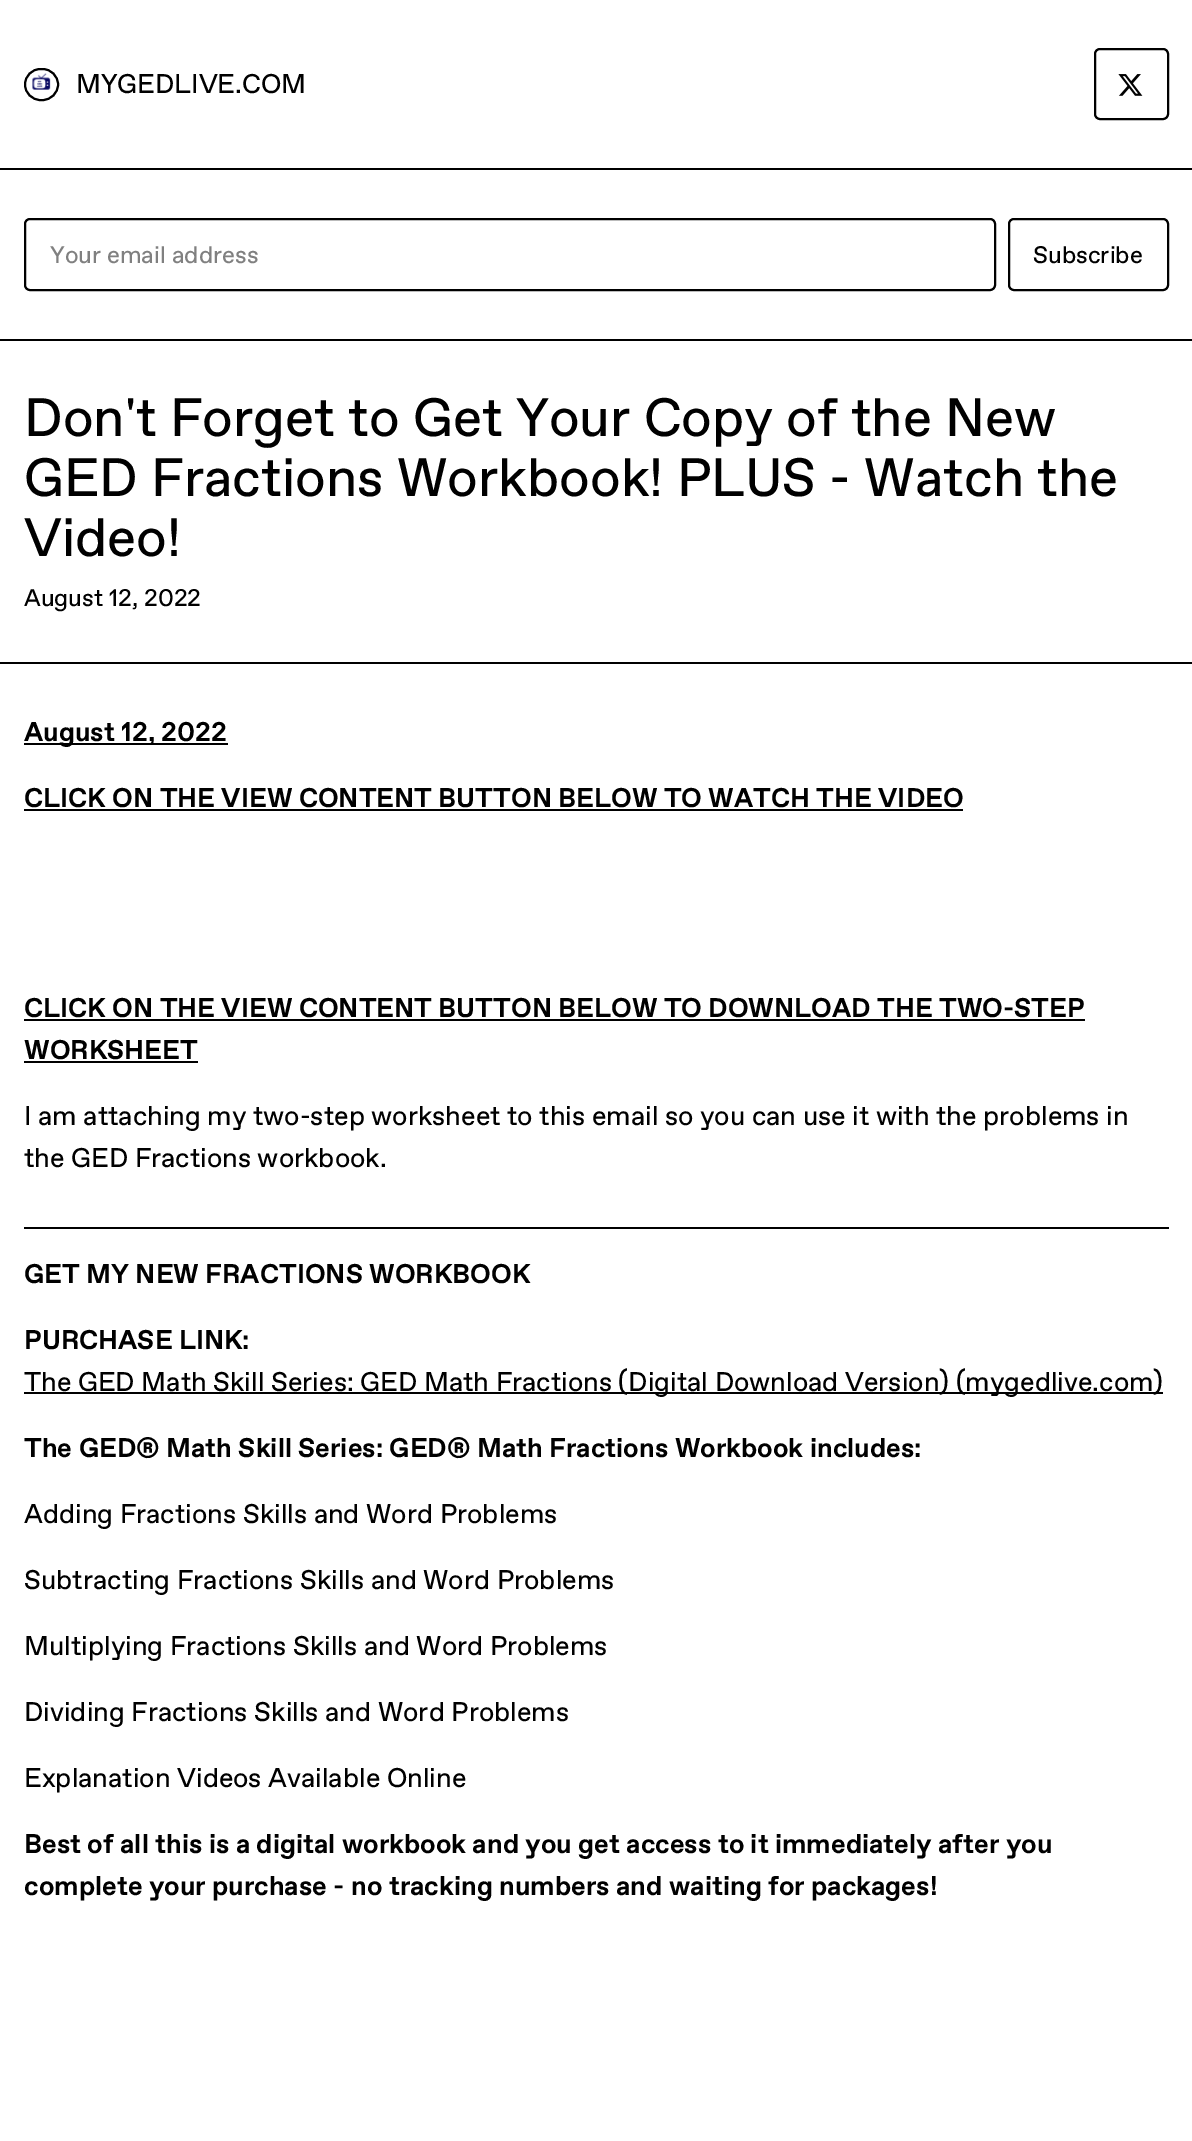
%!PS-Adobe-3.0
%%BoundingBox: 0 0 1192 2141
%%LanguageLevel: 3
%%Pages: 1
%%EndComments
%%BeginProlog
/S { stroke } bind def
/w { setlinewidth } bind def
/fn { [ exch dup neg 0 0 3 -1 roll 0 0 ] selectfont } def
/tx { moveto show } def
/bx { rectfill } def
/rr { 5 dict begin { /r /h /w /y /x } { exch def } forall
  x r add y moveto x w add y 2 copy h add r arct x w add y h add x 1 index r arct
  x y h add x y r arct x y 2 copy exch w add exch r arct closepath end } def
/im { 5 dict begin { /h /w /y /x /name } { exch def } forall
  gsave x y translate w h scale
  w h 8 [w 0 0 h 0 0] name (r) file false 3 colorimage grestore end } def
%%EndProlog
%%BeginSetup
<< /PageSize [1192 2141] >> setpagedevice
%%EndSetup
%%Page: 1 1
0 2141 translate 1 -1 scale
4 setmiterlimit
1 setgray
0 0 1192 2141 bx
0 setgray
0 168 1192 2 bx
2 w
25 69 33 31 15.5 rr S
(image0.raw) 32 73 19 17 im
/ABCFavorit-Regular 27 fn
(MYGEDLIVE.COM) 76 93 tx
1095 49 73 70 5 rr S
(image1.raw) 1118 74 25 22 im
0 339 1192 2 bx
25 219 970 71 5 rr S
/ABCFavorit-Regular 24 fn
0.502 setgray
(Your email address) 50 263 tx
0 setgray
1009 219 159 71 5 rr S
(Subscribe) 1033 263 tx
0 662 1192 2 bx
/ABCFavorit-Regular 54 fn
(Don't Forget to Get Your Copy of the New) 24 436 tx
(GED Fractions Workbook! PLUS - Watch the) 24 496 tx
(Video!) 24 556 tx
/ABCFavorit-Regular 24 fn
(August 12, 2022) 24 606 tx
24 743 204 2 bx
/ABCFavorit-Bold 27 fn
(August 12, 2022) 24 741 tx
(CLICK ON THE VIEW CONTENT BUTTON BELOW TO WATCH THE VIDEO) 24 807 tx
24 809 939 2 bx
(CLICK ON THE VIEW CONTENT BUTTON BELOW TO DOWNLOAD THE TWO-STEP) 24 1017 tx
24 1019 1061 2 bx
(WORKSHEET) 24 1059 tx
24 1061 174 2 bx
/ABCFavorit-Regular 27 fn
(I am attaching my two-step worksheet to this email so you can use it with the problems in) 24 1125 tx
(the GED Fractions workbook.) 24 1167 tx
24 1227 1145 2 bx
/ABCFavorit-Bold 27 fn
(GET MY NEW FRACTIONS WORKBOOK) 24 1283 tx
(PURCHASE LINK:) 24 1349 tx
24 1392 1139 2 bx
/ABCFavorit-Regular 27 fn
(The GED Math Skill Series: GED Math Fractions \(Digital Download Version\) \(mygedlive.com\)) 24 1391 tx
/ABCFavorit-Bold 27 fn
(The GED® Math Skill Series: GED® Math Fractions Workbook includes:) 24 1457 tx
/ABCFavorit-Regular 27 fn
(Adding Fractions Skills and Word Problems) 24 1523 tx
(Subtracting Fractions Skills and Word Problems) 24 1589 tx
(Multiplying Fractions Skills and Word Problems) 24 1655 tx
(Dividing Fractions Skills and Word Problems) 24 1721 tx
(Explanation Videos Available Online) 24 1787 tx
/ABCFavorit-Bold 27 fn
(Best of all this is a digital workbook and you get access to it immediately after you) 24 1853 tx
(complete your purchase - no tracking numbers and waiting for packages!) 24 1895 tx
showpage
%%EOF
